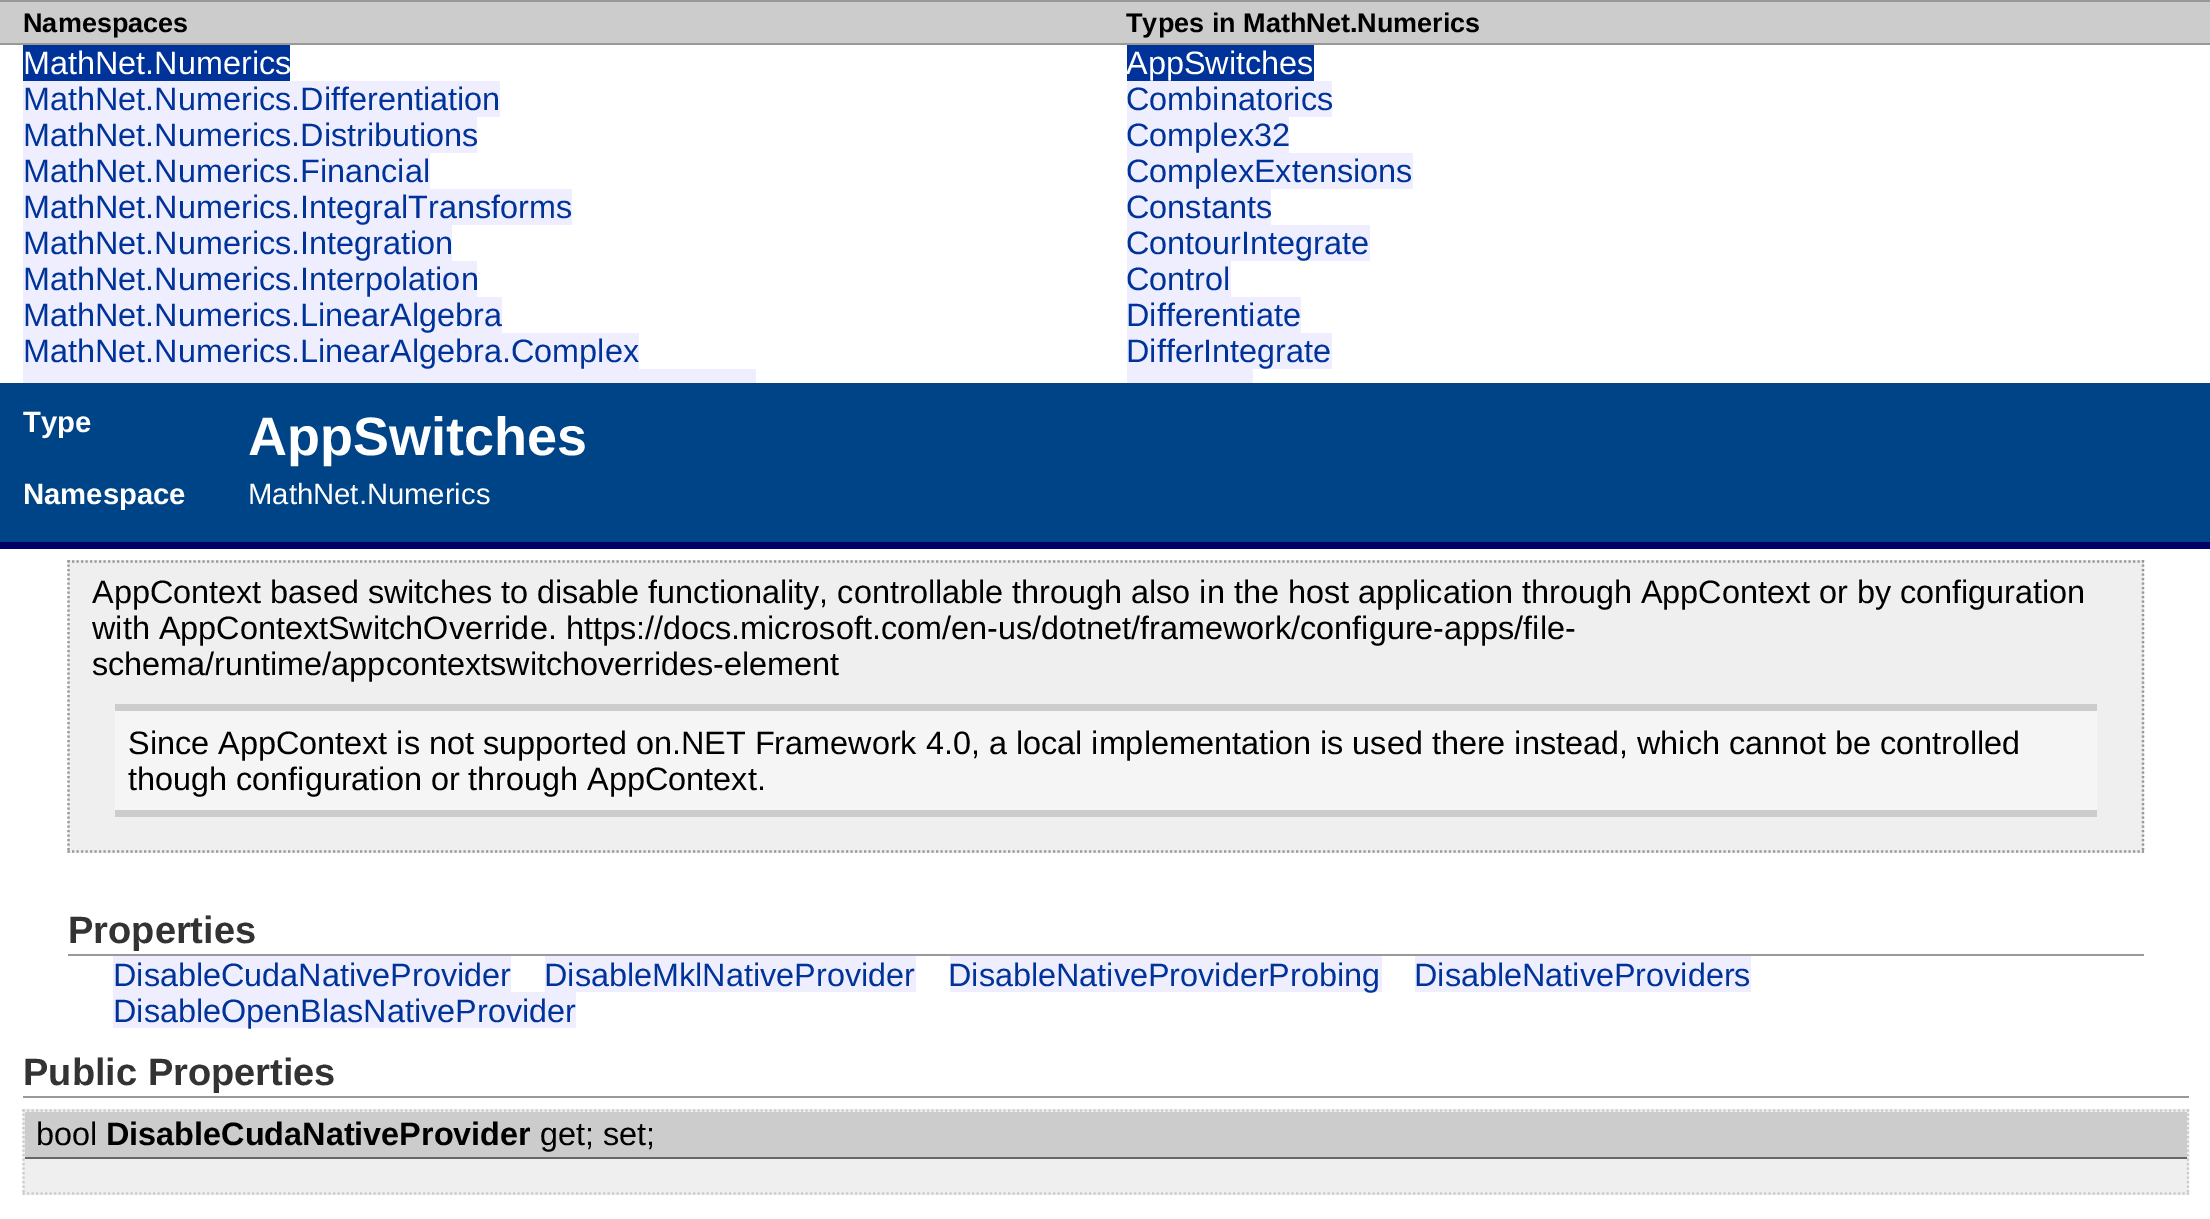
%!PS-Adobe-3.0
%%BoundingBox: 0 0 2210 1219
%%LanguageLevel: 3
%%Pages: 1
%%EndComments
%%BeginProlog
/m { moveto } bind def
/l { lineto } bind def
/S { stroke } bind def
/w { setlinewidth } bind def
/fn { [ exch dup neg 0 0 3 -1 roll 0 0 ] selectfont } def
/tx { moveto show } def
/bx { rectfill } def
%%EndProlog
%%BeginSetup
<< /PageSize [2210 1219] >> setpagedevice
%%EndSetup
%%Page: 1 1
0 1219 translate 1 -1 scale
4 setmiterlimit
1 setgray
0 0 2210 1219 bx
0.8 setgray
0 2 2210 41 bx
0.6 setgray
0 0 2210 2 bx
0 43 2210 2 bx
/LiberationSans-Bold 27 fn
0 setgray
(Namespaces) 23 32 tx
0 0.2 0.6 setrgbcolor
23 45 267 36 bx
/LiberationSans-Regular 32.4 fn
1 setgray
(MathNet.Numerics) 23 74 tx
0.933 0.933 1 setrgbcolor
23 81 477 36 bx
0 0.2 0.6 setrgbcolor
(MathNet.Numerics.Differentiation) 23 110 tx
0.933 0.933 1 setrgbcolor
23 117 454 36 bx
0 0.2 0.6 setrgbcolor
(MathNet.Numerics.Distributions) 23 146 tx
0.933 0.933 1 setrgbcolor
23 153 407 36 bx
0 0.2 0.6 setrgbcolor
(MathNet.Numerics.Financial) 23 182 tx
0.933 0.933 1 setrgbcolor
23 189 549 36 bx
0 0.2 0.6 setrgbcolor
(MathNet.Numerics.IntegralTransforms) 23 218 tx
0.933 0.933 1 setrgbcolor
23 225 429 36 bx
0 0.2 0.6 setrgbcolor
(MathNet.Numerics.Integration) 23 254 tx
0.933 0.933 1 setrgbcolor
23 261 454 36 bx
0 0.2 0.6 setrgbcolor
(MathNet.Numerics.Interpolation) 23 290 tx
0.933 0.933 1 setrgbcolor
23 297 479 36 bx
0 0.2 0.6 setrgbcolor
(MathNet.Numerics.LinearAlgebra) 23 326 tx
0.933 0.933 1 setrgbcolor
23 333 616 36 bx
0 0.2 0.6 setrgbcolor
(MathNet.Numerics.LinearAlgebra.Complex) 23 362 tx
0.933 0.933 1 setrgbcolor
23 369 733 14 bx
/LiberationSans-Bold 27 fn
0 setgray
(Types in MathNet.Numerics) 1126 32 tx
0 0.2 0.6 setrgbcolor
1127 45 187 36 bx
/LiberationSans-Regular 32.4 fn
1 setgray
(AppSwitches) 1126 74 tx
0.933 0.933 1 setrgbcolor
1127 81 205 36 bx
0 0.2 0.6 setrgbcolor
(Combinatorics) 1126 110 tx
0.933 0.933 1 setrgbcolor
1127 117 162 36 bx
0 0.2 0.6 setrgbcolor
(Complex32) 1126 146 tx
0.933 0.933 1 setrgbcolor
1127 153 286 36 bx
0 0.2 0.6 setrgbcolor
(ComplexExtensions) 1126 182 tx
0.933 0.933 1 setrgbcolor
1127 189 144 36 bx
0 0.2 0.6 setrgbcolor
(Constants) 1126 218 tx
0.933 0.933 1 setrgbcolor
1127 225 243 36 bx
0 0.2 0.6 setrgbcolor
(ContourIntegrate) 1126 254 tx
0.933 0.933 1 setrgbcolor
1127 261 104 36 bx
0 0.2 0.6 setrgbcolor
(Control) 1126 290 tx
0.933 0.933 1 setrgbcolor
1127 297 174 36 bx
0 0.2 0.6 setrgbcolor
(Differentiate) 1126 326 tx
0.933 0.933 1 setrgbcolor
1127 333 205 36 bx
0 0.2 0.6 setrgbcolor
(DifferIntegrate) 1126 362 tx
0.933 0.933 1 setrgbcolor
1127 369 126 14 bx
0 0.267 0.533 setrgbcolor
0 383 2210 159 bx
0 0 0.4 setrgbcolor
0 542 2210 7 bx
/LiberationSans-Bold 29.25 fn
1 setgray
(Type) 23 432 tx
/LiberationSans-Bold 54 fn
(AppSwitches) 248 455 tx
/LiberationSans-Bold 29.25 fn
(Namespace) 23 504 tx
/LiberationSans-Regular 29.25 fn
(MathNet.Numerics) 248 504 tx
0.937 setgray
68 560 2076 293 bx
0.6 setgray
2.2 w
[2.25 2.25] 0 setdash
67.5 561.5 m 2144 561.5 l S
2143 560 m 2143 853 l S
67.5 851.5 m 2144 851.5 l S
68.5 560 m 68.5 853 l S
/LiberationSans-Regular 32.4 fn
0 setgray
(AppContext based switches to disable functionality, controllable through also in the host application through AppContext or by configuration) 92 603 tx
(with AppContextSwitchOverride. https://docs.microsoft.com/en-us/dotnet/framework/configure-apps/file-) 92 639 tx
(schema/runtime/appcontextswitchoverrides-element) 92 675 tx
0.961 setgray
115 711 1982 99 bx
0.8 setgray
115 704 1982 7 bx
115 810 1982 7 bx
0 setgray
(Since AppContext is not supported on.NET Framework 4.0, a local implementation is used there instead, which cannot be controlled) 128 754 tx
(though configuration or through AppContext.) 128 790 tx
0.6 setgray
68 954 2076 2 bx
/LiberationSans-Bold 38 fn
0.2 setgray
(Properties) 68 943 tx
0.933 0.933 1 setrgbcolor
113 956 398 36 bx
/LiberationSans-Regular 32.4 fn
0 0.2 0.6 setrgbcolor
(DisableCudaNativeProvider) 113 986 tx
0.933 0.933 1 setrgbcolor
545 956 371 36 bx
0 0.2 0.6 setrgbcolor
(DisableMklNativeProvider) 544 986 tx
0.933 0.933 1 setrgbcolor
950 956 432 36 bx
0 0.2 0.6 setrgbcolor
(DisableNativeProviderProbing) 948 986 tx
0.933 0.933 1 setrgbcolor
1415 956 336 36 bx
0 0.2 0.6 setrgbcolor
(DisableNativeProviders) 1414 986 tx
0.933 0.933 1 setrgbcolor
113 992 463 36 bx
0 0.2 0.6 setrgbcolor
(DisableOpenBlasNativeProvider) 113 1022 tx
0.6 setgray
23 1096 2166 2 bx
/LiberationSans-Bold 38 fn
0.2 setgray
(Public Properties) 23 1085 tx
0.937 setgray
23 1109 2166 86 bx
0.8 setgray
22.5 1110.5 m 2189 1110.5 l S
2188 1109 m 2188 1195 l S
22.5 1193.5 m 2189 1193.5 l S
23.5 1109 m 23.5 1195 l S
25 1112 2162 45 bx
0.4 setgray
25 1157 2162 2 bx
/LiberationSans-Regular 32.4 fn
0 setgray
(bool) 36 1145 tx
/LiberationSans-Bold 32.4 fn
(DisableCudaNativeProvider) 106 1145 tx
/LiberationSans-Regular 32.4 fn
(get; set;) 540 1145 tx
showpage
%%EOF
